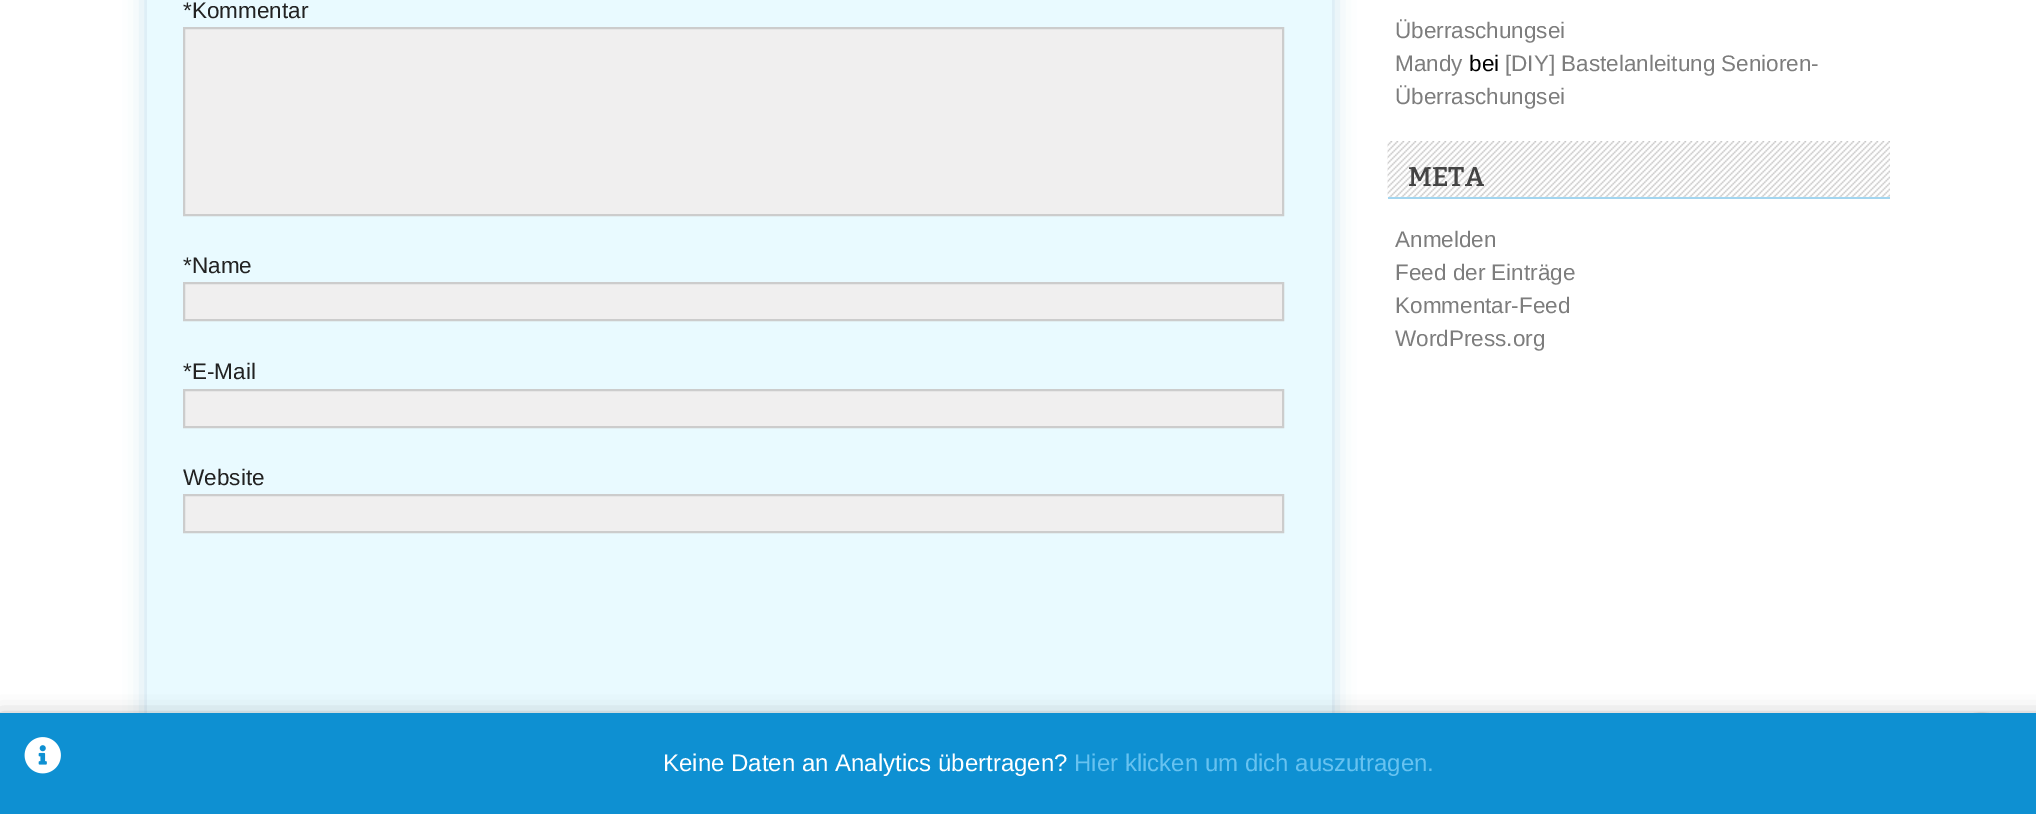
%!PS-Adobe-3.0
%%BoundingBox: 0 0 2036 814
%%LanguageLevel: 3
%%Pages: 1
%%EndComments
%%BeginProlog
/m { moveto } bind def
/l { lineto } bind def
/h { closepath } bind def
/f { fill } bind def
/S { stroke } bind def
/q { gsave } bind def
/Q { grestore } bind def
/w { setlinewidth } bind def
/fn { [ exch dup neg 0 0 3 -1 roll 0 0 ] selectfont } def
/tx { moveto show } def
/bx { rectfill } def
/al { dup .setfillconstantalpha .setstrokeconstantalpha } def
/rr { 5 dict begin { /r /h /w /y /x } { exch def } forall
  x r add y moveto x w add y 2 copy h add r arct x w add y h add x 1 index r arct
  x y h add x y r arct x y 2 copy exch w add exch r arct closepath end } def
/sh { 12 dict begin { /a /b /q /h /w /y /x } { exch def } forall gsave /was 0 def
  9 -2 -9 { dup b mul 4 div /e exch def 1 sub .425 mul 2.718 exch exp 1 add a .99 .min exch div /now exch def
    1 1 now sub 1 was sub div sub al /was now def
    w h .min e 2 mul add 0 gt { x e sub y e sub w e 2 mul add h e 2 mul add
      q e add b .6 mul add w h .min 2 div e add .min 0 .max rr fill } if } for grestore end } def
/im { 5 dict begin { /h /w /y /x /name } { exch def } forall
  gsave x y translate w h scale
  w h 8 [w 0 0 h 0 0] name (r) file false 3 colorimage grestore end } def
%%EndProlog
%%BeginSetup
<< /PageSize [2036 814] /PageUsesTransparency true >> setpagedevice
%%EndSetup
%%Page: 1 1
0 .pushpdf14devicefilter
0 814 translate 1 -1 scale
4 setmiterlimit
1 setgray
0 0 2036 814 bx
0.737 0.863 0.929 setrgbcolor
147 -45 1185 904 12 11 1 sh
0.914 0.98 1 setrgbcolor
147 0 1185 713 bx
/LiberationSans-Regular 22.5 fn
0.133 setgray
(*Kommentar) 183 18 tx
0.941 0.937 0.937 setrgbcolor
184 28 m 1283 28 l 1283 215 l 184 215 l h q f Q
0.8 setgray
2 w
S
0.133 setgray
(*Name) 183 273 tx
0.941 0.937 0.937 setrgbcolor
184 283 m 1283 283 l 1283 320 l 184 320 l h q f Q
0.8 setgray
S
0.133 setgray
(*E-Mail) 183 379 tx
0.941 0.937 0.937 setrgbcolor
184 390 m 1283 390 l 1283 427 l 184 427 l h q f Q
0.8 setgray
S
0.133 setgray
(Website) 183 485 tx
0.941 0.937 0.937 setrgbcolor
184 495 m 1283 495 l 1283 532 l 184 532 l h q f Q
0.8 setgray
S
0.49 setgray
(Überraschungsei) 1395 38 tx
(Mandy) 1395 71 tx
0 setgray
(bei) 1469 71 tx
0.49 setgray
([DIY] Bastelanleitung Senioren-) 1505 71 tx
(Überraschungsei) 1395 104 tx
(image0.raw) 1387 141 503 57 im
0.639 0.835 0.937 setrgbcolor
1388 197 502 2 bx
/Bitter-SemiBold 27 fn
0.267 setgray
(META) 1408 186 tx
/LiberationSans-Regular 22.5 fn
0.49 setgray
(Anmelden) 1395 247 tx
(Feed der Einträge) 1395 280 tx
(Kommentar-Feed) 1395 313 tx
(WordPress.org) 1395 346 tx
(image1.raw) 1973 712 17 1 im
0 setgray
0 719 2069 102 0 11 0.4 sh
0.055 0.565 0.824 setrgbcolor
0 713 2036 101 bx
(image2.raw) 24 737 37 37 im
/LiberationSans-Regular 24 fn
1 setgray
(Keine Daten an Analytics übertragen?) 663 771 tx
0.404 0.761 0.941 setrgbcolor
(Hier klicken um dich auszutragen.) 1074 771 tx
.poppdf14devicefilter showpage
%%EOF
